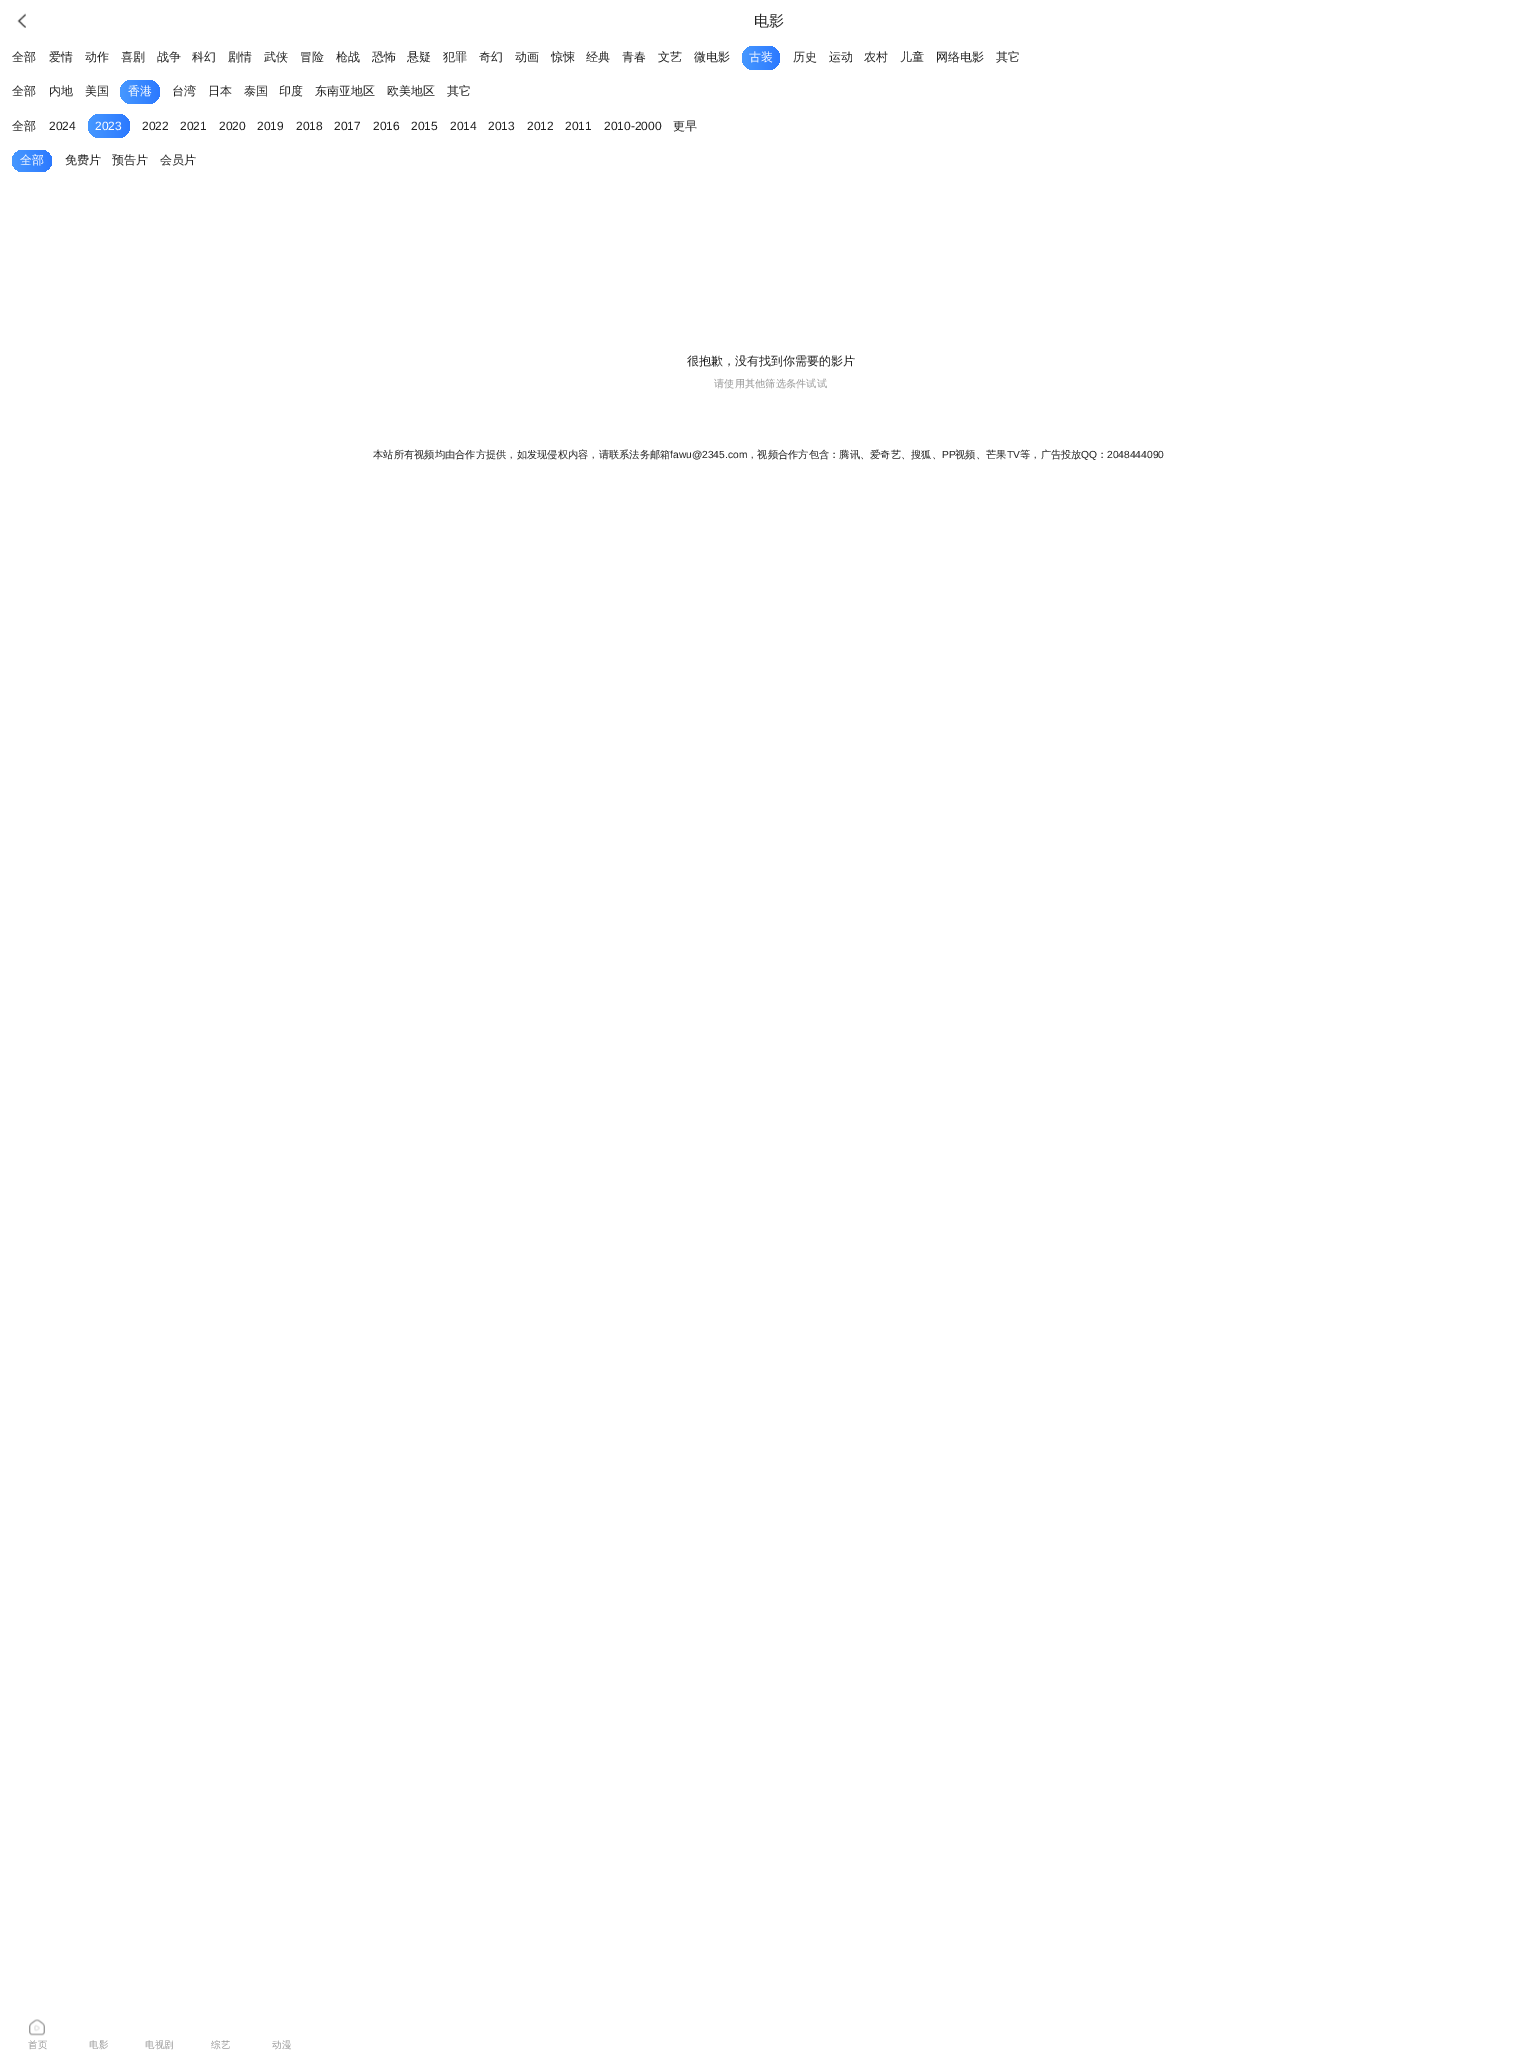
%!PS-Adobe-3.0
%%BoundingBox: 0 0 1535 2056
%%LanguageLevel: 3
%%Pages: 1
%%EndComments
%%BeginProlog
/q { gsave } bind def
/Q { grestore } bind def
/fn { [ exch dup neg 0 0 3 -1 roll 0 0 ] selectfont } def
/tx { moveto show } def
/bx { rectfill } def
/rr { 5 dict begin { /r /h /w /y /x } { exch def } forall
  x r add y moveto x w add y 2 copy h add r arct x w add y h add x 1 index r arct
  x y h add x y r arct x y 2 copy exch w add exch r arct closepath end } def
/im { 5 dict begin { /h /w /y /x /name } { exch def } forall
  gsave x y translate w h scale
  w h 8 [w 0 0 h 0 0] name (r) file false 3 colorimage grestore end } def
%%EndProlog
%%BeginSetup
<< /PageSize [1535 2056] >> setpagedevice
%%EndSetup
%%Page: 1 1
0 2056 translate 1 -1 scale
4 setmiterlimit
1 setgray
0 0 1535 2056 bx
(image0.raw) 17 13 9 15 im
/WenQuanYiZenHei-Medium 15 fn
0.133 setgray
(电影) 754 26 tx
/WenQuanYiZenHei-Medium 12 fn
(全部) 12 61 tx
(爱情) 49 61 tx
(动作) 85 61 tx
(喜剧) 121 61 tx
(战争) 157 61 tx
(科幻) 192 61 tx
(剧情) 228 61 tx
(武侠) 264 61 tx
(冒险) 300 61 tx
(枪战) 336 61 tx
(恐怖) 372 61 tx
(悬疑) 407 61 tx
(犯罪) 443 61 tx
(奇幻) 479 61 tx
(动画) 515 61 tx
(惊悚) 551 61 tx
(经典) 586 61 tx
(青春) 622 61 tx
(文艺) 658 61 tx
(微电影) 694 61 tx
q 742 46 38 24 12 rr clip newpath
<< /ShadingType 2 /ColorSpace /DeviceRGB /Coords [742 58 780 58] /Extend [true true] /Function << /FunctionType 2 /Domain [0 1] /C0 [0.275 0.596 1] /C1 [0.173 0.475 1] /N 1 >> >> shfill Q
1 setgray
(古装) 749 61 tx
0.133 setgray
(历史) 793 61 tx
(运动) 829 61 tx
(农村) 864 61 tx
(儿童) 900 61 tx
(网络电影) 936 61 tx
(其它) 996 61 tx
(全部) 12 95 tx
(内地) 49 95 tx
(美国) 85 95 tx
q 120 80 40 24 12 rr clip newpath
<< /ShadingType 2 /ColorSpace /DeviceRGB /Coords [120 92 160 92] /Extend [true true] /Function << /FunctionType 2 /Domain [0 1] /C0 [0.275 0.596 1] /C1 [0.173 0.475 1] /N 1 >> >> shfill Q
1 setgray
(香港) 128 95 tx
0.133 setgray
(台湾) 172 95 tx
(日本) 208 95 tx
(泰国) 244 95 tx
(印度) 279 95 tx
(东南亚地区) 315 95 tx
(欧美地区) 387 95 tx
(其它) 447 95 tx
(全部) 12 130 tx
/LiberationSans-Regular 12 fn
(2024) 49 130 tx
q 88 114 42 24 12 rr clip newpath
<< /ShadingType 2 /ColorSpace /DeviceRGB /Coords [88 126 130 126] /Extend [true true] /Function << /FunctionType 2 /Domain [0 1] /C0 [0.275 0.596 1] /C1 [0.173 0.475 1] /N 1 >> >> shfill Q
1 setgray
(2023) 95 130 tx
0.133 setgray
(2022) 142 130 tx
(2021) 180 130 tx
(2020) 219 130 tx
(2019) 257 130 tx
(2018) 296 130 tx
(2017) 334 130 tx
(2016) 373 130 tx
(2015) 411 130 tx
(2014) 450 130 tx
(2013) 488 130 tx
(2012) 527 130 tx
(2011) 565 130 tx
(2010-2000) 604 130 tx
/WenQuanYiZenHei-Medium 12 fn
(更早) 673 130 tx
q 12 150 40 22 11 rr clip newpath
<< /ShadingType 2 /ColorSpace /DeviceRGB /Coords [12 161 52 161] /Extend [true true] /Function << /FunctionType 2 /Domain [0 1] /C0 [0.275 0.596 1] /C1 [0.173 0.475 1] /N 1 >> >> shfill Q
1 setgray
(全部) 20 164 tx
0.133 setgray
(免费片) 65 164 tx
(预告片) 112 164 tx
(会员片) 160 164 tx
(很抱歉，没有找到你需要的影片) 687 365 tx
/WenQuanYiZenHei-Medium 10.25 fn
0.6 setgray
(请使用其他筛选条件试试) 714 387 tx
0.133 setgray
(本站所有视频均由合作方提供，如发现侵权内容，请联系法务邮箱) 373 458 tx
/LiberationSans-Regular 10.25 fn
(fawu@2345.com) 670 458 tx
/WenQuanYiZenHei-Medium 10.25 fn
(，视频合作方包含：腾讯、爱奇艺、搜狐、) 747 458 tx
/LiberationSans-Regular 10.25 fn
(PP) 942 458 tx
/WenQuanYiZenHei-Medium 10.25 fn
(视频、芒果) 955 458 tx
/LiberationSans-Regular 10.25 fn
(TV) 1007 458 tx
/WenQuanYiZenHei-Medium 10.25 fn
(等，广告投放) 1020 458 tx
/LiberationSans-Regular 10.25 fn
(QQ) 1081 458 tx
/WenQuanYiZenHei-Medium 10.25 fn
(：) 1097 458 tx
/LiberationSans-Regular 10.25 fn
(2048444090) 1107 458 tx
(image1.raw) 29 2019 16 17 im
/WenQuanYiZenHei-Medium 9.5 fn
0.6 setgray
(首页) 28 2048 tx
(电影) 89 2048 tx
(电视剧) 145 2048 tx
(综艺) 211 2048 tx
(动漫) 272 2048 tx
showpage
%%EOF
